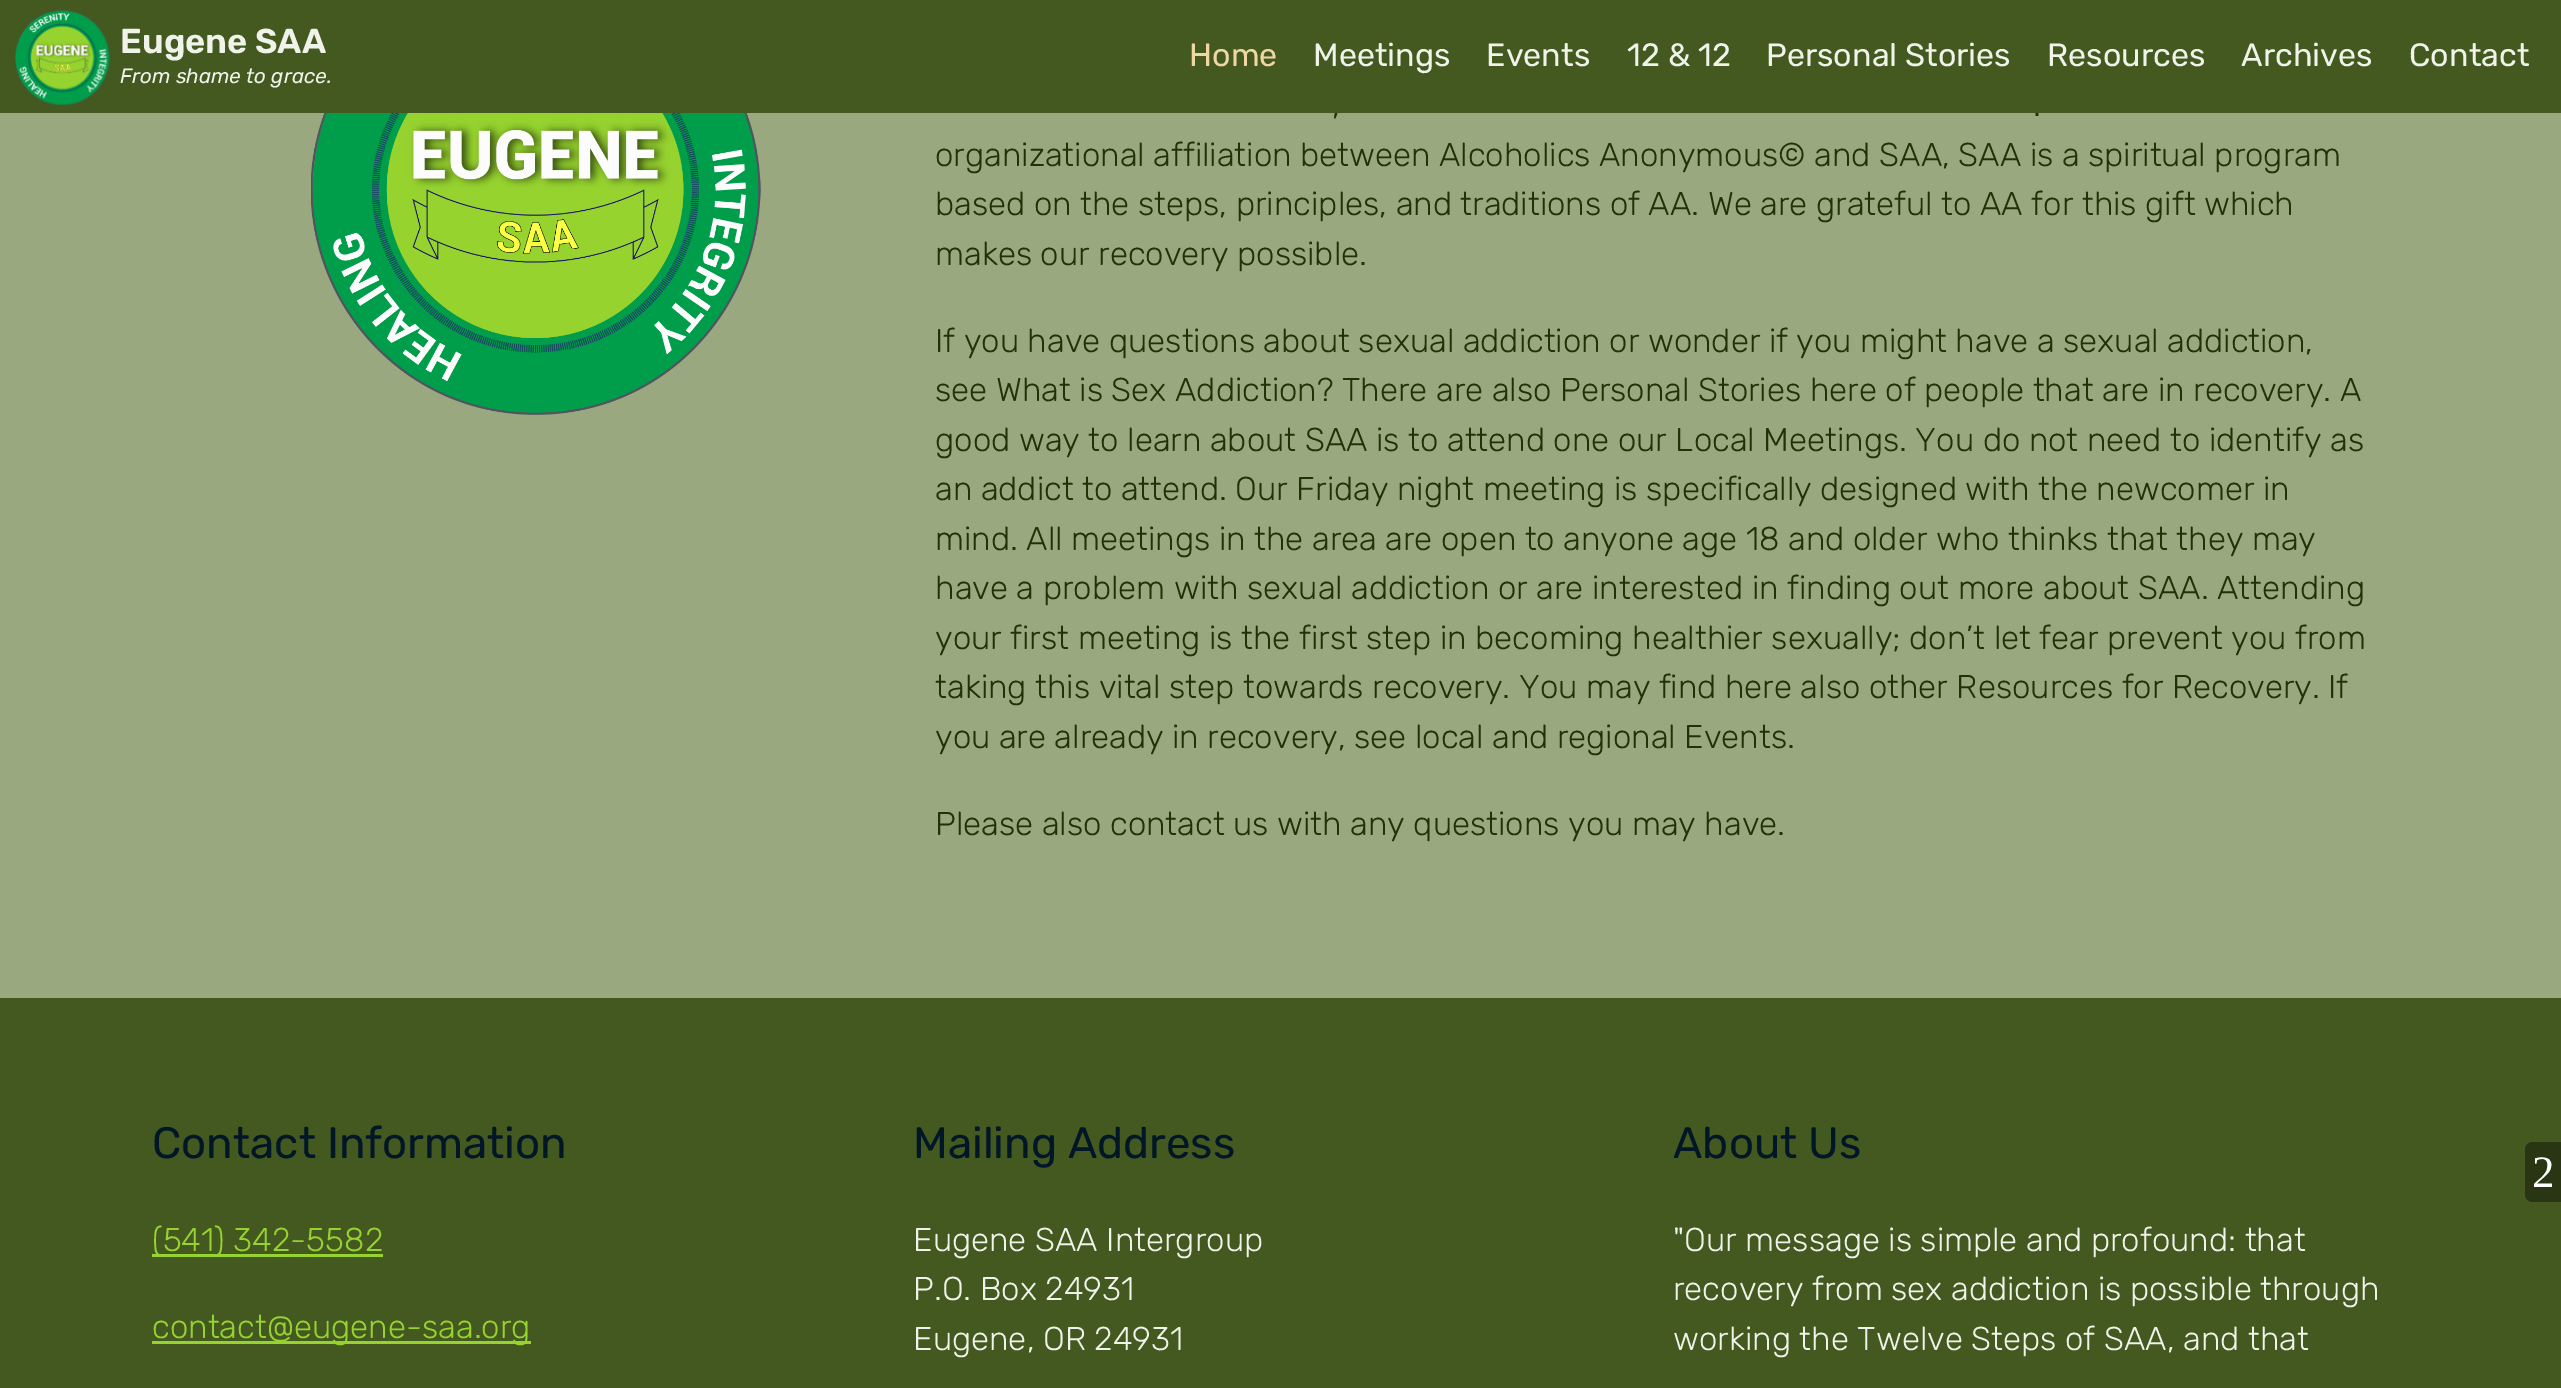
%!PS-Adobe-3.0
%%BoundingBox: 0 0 2561 1388
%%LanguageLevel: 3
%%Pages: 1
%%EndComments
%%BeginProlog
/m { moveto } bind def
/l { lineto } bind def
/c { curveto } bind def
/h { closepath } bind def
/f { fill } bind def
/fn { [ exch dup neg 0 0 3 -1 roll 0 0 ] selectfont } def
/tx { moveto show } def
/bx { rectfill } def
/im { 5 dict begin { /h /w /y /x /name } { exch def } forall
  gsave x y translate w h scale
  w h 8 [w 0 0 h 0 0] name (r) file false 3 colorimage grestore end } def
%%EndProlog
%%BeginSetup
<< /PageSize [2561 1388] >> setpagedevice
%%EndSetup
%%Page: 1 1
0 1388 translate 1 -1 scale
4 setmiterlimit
0.6 0.659 0.498 setrgbcolor
0 0 2561 1388 bx
/Rubik-Light 33 fn
0.133 0.192 0.031 setrgbcolor
(,) 1332 116 tx
(.) 2033 116 tx
0.267 0.349 0.125 setrgbcolor
0 0 2561 113 bx
(image0.raw) 15 10 95 95 im
/Rubik-SemiBold 34.5 fn
0.941 0.953 0.918 setrgbcolor
(Eugene SAA) 120 53 tx
/Rubik-Italic 20.75 fn
(From shame to grace.) 120 83 tx
/Rubik-Regular 32.25 fn
0.937 0.843 0.643 setrgbcolor
(Home) 1189 66 tx
0.941 0.953 0.918 setrgbcolor
(Meetings) 1313 66 tx
(Events) 1486 66 tx
(12 & 12) 1627 66 tx
(Personal Stories) 1766 66 tx
(Resources) 2047 66 tx
(Archives) 2241 66 tx
(Contact) 2409 66 tx
(image1.raw) 311 113 450 302 im
/Rubik-Light 33 fn
0.133 0.192 0.031 setrgbcolor
(organizational affiliation between Alcoholics Anonymous© and SAA, SAA is a spiritual program) 935 166 tx
(based on the steps, principles, and traditions of AA. We are grateful to AA for this gift which) 935 215 tx
(makes our recovery possible.) 935 265 tx
(If you have questions about sexual addiction or wonder if you might have a sexual addiction,) 935 352 tx
(see What is Sex Addiction? There are also Personal Stories here of people that are in recovery. A) 935 401 tx
(good way to learn about SAA is to attend one our Local Meetings. You do not need to identify as) 935 451 tx
(an addict to attend. Our Friday night meeting is specifically designed with the newcomer in) 935 500 tx
(mind. All meetings in the area are open to anyone age 18 and older who thinks that they may) 935 550 tx
(have a problem with sexual addiction or are interested in finding out more about SAA. Attending) 935 599 tx
(your first meeting is the first step in becoming healthier sexually; don’t let fear prevent you from) 935 649 tx
(taking this vital step towards recovery. You may find here also other Resources for Recovery. If) 935 698 tx
(you are already in recovery, see local and regional Events.) 935 748 tx
(Please also contact us with any questions you may have.) 935 835 tx
0.267 0.349 0.125 setrgbcolor
0 998 2561 390 bx
/Rubik-Regular 43.9 fn
0.004 0.086 0.153 setrgbcolor
(Contact Information) 152 1158 tx
0.588 0.827 0.184 setrgbcolor
152 1254 231 3 bx
/Rubik-Light 33 fn
(\(541\) 342-5582) 152 1251 tx
152 1341 379 3 bx
(contact@eugene-saa.org) 152 1338 tx
/Rubik-Regular 43.9 fn
0.004 0.086 0.153 setrgbcolor
(Mailing Address) 913 1158 tx
/Rubik-Light 33 fn
0.941 0.953 0.918 setrgbcolor
(Eugene SAA Intergroup) 913 1251 tx
(P.O. Box 24931) 913 1300 tx
(Eugene, OR 24931) 913 1350 tx
/Rubik-Regular 43.9 fn
0.004 0.086 0.153 setrgbcolor
(About Us) 1673 1158 tx
/Rubik-Light 33 fn
0.941 0.953 0.918 setrgbcolor
("Our message is simple and profound: that) 1673 1251 tx
(recovery from sex addiction is possible through) 1673 1300 tx
(working the Twelve Steps of SAA, and that) 1673 1350 tx
0.161 0.208 0.075 setrgbcolor
2533 1142 m 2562 1142 l 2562 1202 l 2533 1202 l 2528.5 1202 2525 1198.5 2525 1194 c 2525 1150 l 2525 1145.5 2528.5 1142 2533 1142 c h f
/LiberationSerif-Regular 45 fn
1 setgray
(2) 2532 1187 tx
showpage
%%EOF
